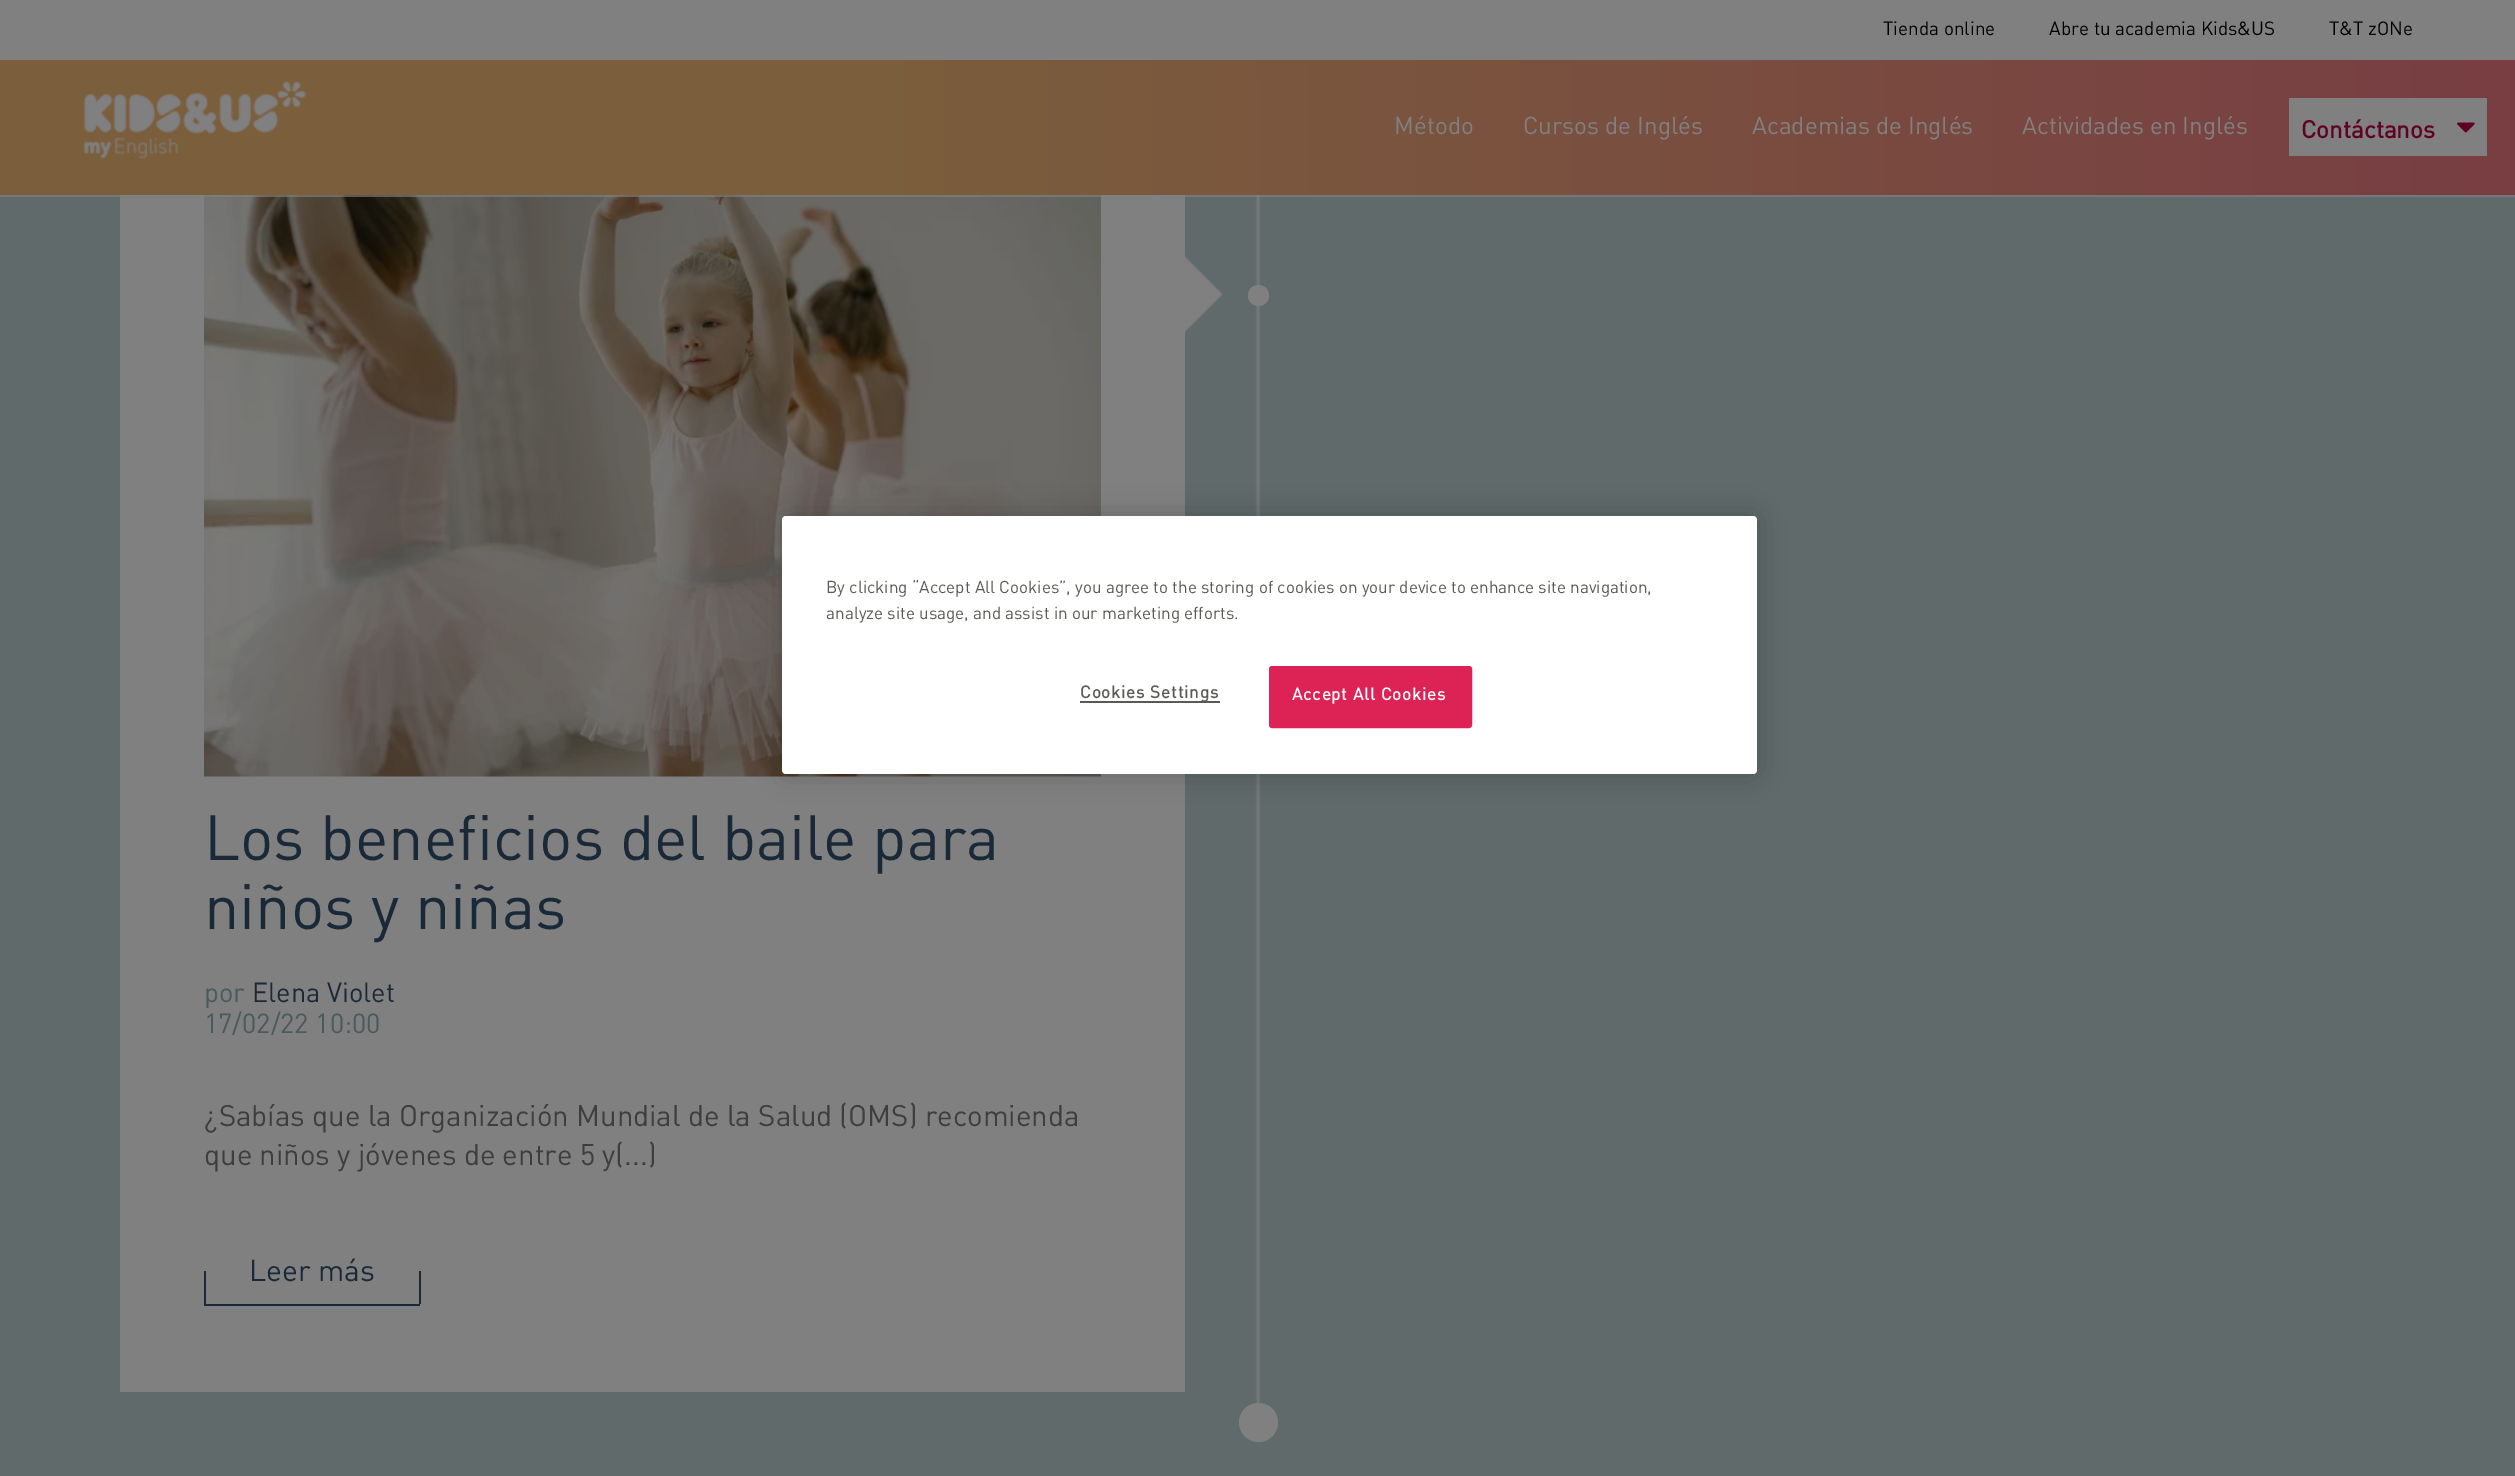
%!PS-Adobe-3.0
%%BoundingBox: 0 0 2515 1476
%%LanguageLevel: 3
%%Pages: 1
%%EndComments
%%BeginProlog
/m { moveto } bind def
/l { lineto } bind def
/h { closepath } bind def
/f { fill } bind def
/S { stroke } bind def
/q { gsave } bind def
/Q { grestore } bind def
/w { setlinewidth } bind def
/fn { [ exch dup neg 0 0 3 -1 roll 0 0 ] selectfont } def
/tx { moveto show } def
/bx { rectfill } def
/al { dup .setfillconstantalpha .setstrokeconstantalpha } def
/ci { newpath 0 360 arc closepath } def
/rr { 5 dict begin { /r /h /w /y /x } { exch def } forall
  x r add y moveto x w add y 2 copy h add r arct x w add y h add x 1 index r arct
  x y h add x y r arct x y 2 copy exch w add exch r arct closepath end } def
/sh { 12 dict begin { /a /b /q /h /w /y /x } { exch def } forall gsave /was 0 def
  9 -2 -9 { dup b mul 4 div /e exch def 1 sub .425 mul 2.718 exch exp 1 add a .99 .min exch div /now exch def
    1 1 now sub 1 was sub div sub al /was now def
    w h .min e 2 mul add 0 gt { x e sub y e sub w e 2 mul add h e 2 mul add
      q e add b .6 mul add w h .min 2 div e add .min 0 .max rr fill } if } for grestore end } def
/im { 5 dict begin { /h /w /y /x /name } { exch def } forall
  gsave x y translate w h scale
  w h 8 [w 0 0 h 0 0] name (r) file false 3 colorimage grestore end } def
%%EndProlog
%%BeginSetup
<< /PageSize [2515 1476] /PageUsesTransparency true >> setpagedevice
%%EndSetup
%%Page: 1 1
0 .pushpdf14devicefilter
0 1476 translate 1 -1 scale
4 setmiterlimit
0.376 0.416 0.42 setrgbcolor
0 0 2515 1476 bx
(image2.raw) 1255 195 6 1209 im
0.502 setgray
120 195 1065 1197 bx
(image4.raw) 204 195 897 582 im
0.65 al
0 195 2515 2 bx
1 al
0 0 2515 60 bx
/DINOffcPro-Regular 18.9 fn
0 setgray
(Tienda online) 1883 35 tx
(Abre tu academia Kids&US) 2049 35 tx
(T&T zONe) 2329 35 tx
q 0 60 m 2515 60 l 2515 195 l 0 195 l h clip newpath
<< /ShadingType 2 /ColorSpace /DeviceRGB /Coords [0 128 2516 127] /Extend [true true] /Function << /FunctionType 3 /Domain [0 1] /Functions [<< /FunctionType 2 /Domain [0 1] /C0 [0.482 0.369 0.235] /C1 [0.482 0.369 0.235] /N 1 >> << /FunctionType 2 /Domain [0 1] /C0 [0.482 0.369 0.235] /C1 [0.471 0.243 0.263] /N 1 >>] /Bounds [0.35] /Encode [0 1 0 1] >> >> shfill Q
(image0.raw) 83 81 224 79 im
/DINOffcPro-Regular 24.25 fn
0.502 setgray
(Método) 1394 134 tx
(Cursos de Inglés) 1523 134 tx
(Academias de Inglés) 1752 134 tx
(Actividades en Inglés) 2022 134 tx
2289 98 198 58 bx
/DINOffcPro-Bold 24.25 fn
0.373 0 0.141 setrgbcolor
(Contáctanos) 2301 138 tx
(image1.raw) 2457 122 18 11 im
0 setgray
782 516 975 258 4 13.5 0.2 sh
1 setgray
782 516 975 258 4 rr f
/DINOffcPro-Regular 17.05 fn
0.353 0.353 0.333 setrgbcolor
(By clicking “Accept All Cookies”, you agree to the storing of cookies on your device to enhance site navigation,) 826 593 tx
(analyze site usage, and assist in our marketing efforts.) 826 619 tx
1080 701 140 2 bx
/DINOffcPro-Bold 17.05 fn
1080 698 m 0.8 0 (Cookies Settings) ashow
0.867 0.133 0.333 setrgbcolor
1270 667 201 60 2 rr q f Q
2 w
S
1 setgray
1292 700 m 0.8 0 (Accept All Cookies) ashow
(image3.raw) 1185 255 38 78 im
0.502 setgray
1258.5 295.5 10.5 ci f
/DINOffcPro-Regular 63 fn
0.102 0.161 0.22 setrgbcolor
(Los beneficios del baile para) 204 860 tx
(niños y niñas) 204 929 tx
/DINOffcPro-Regular 27.25 fn
0.286 0.353 0.357 setrgbcolor
(por) 204 1002 tx
0.102 0.161 0.22 setrgbcolor
(Elena Violet) 252 1002 tx
0.286 0.353 0.357 setrgbcolor
(17/02/22 10:00) 204 1033 tx
/DINOffcPro-Regular 29.4 fn
0.243 setgray
(¿Sabías que la Organización Mundial de la Salud \(OMS\) recomienda) 204 1126 tx
(que niños y jóvenes de entre 5 y\(...\)) 204 1165 tx
0.102 0.161 0.22 setrgbcolor
204 1304 216 2 bx
204 1271 2 33 bx
/DINOffcPro-Regular 30 fn
(Leer más) 249 1281 tx
419 1271 2 33 bx
0.502 setgray
1258.5 1422.5 19.5 ci f
.poppdf14devicefilter showpage
%%EOF
